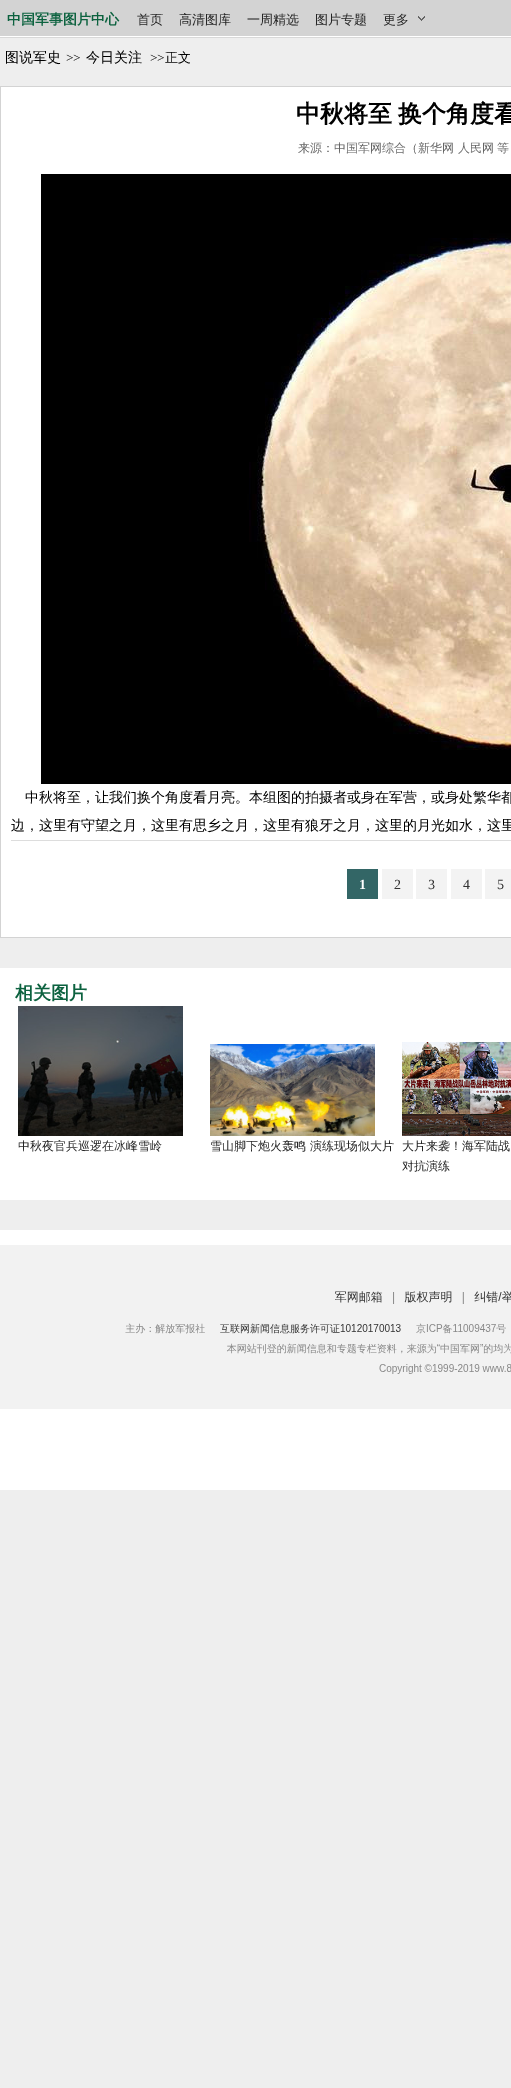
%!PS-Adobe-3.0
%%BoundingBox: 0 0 511 2088
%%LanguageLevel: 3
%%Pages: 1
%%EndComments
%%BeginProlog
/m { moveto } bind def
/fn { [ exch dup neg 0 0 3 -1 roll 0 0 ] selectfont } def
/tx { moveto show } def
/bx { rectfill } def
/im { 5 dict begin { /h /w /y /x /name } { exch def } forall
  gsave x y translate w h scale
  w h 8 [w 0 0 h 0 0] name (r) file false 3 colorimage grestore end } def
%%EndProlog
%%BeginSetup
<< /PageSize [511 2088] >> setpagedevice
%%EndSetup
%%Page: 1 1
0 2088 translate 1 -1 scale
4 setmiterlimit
0.933 setgray
0 0 511 2088 bx
1 setgray
0 36 511 1 bx
0.847 setgray
0 37 511 1 bx
0.827 setgray
0 0 511 36 bx
/WenQuanYiZenHei-Bold 14 fn
0.047 0.384 0.247 setrgbcolor
(中国军事图片中心) 7 24 tx
/WenQuanYiZenHei-Medium 13 fn
0.145 setgray
(首页) 137 24 tx
(高清图库) 179 24 tx
(一周精选) 247 24 tx
(图片专题) 315 24 tx
(image0.raw) 418 16 7 5 im
(更多) 383 24 tx
/WenQuanYiZenHei-Medium 14 fn
0 setgray
(图说军史) 5 62 tx
/LiberationSerif-Regular 13 fn
(>>) 66 62 tx
/WenQuanYiZenHei-Medium 14 fn
(今日关注) 86 62 tx
/LiberationSerif-Regular 13 fn
(>>) 150 62 tx
/WenQuanYiZenHei-Medium 13 fn
(正文) 165 62 tx
1 setgray
1 87 510 850 bx
0.827 setgray
0 86 511 1 bx
0 937 511 1 bx
0 86 1 852 bx
/WenQuanYiZenHei-Bold 24 fn
0 setgray
296 122 m -1 0 32 (中秋将至 换个角度看) widthshow
/WenQuanYiZenHei-Medium 12 fn
0.4 setgray
(来源：中国军网综合（新华网 人民网 等) 298 152 tx
(image1.raw) 41 174 470 610 im
/WenQuanYiZenHei-Medium 14 fn
0 setgray
(中秋将至，让我们换个角度看月亮。本组图的拍摄者或身在军营，或身处繁华都) 25 802 tx
(边，这里有守望之月，这里有思乡之月，这里有狼牙之月，这里的月光如水，这里) 11 830 tx
0.867 setgray
11 840 500 1 bx
0.2 0.4 0.4 setrgbcolor
347 869 31 30 bx
/LiberationSerif-Bold 14 fn
1 setgray
(1) 359 889 tx
0.953 setgray
382 869 31 30 bx
/LiberationSerif-Regular 14 fn
0.2 setgray
(2) 394 889 tx
0.953 setgray
416 869 31 30 bx
0.2 setgray
(3) 428 889 tx
0.953 setgray
451 869 31 30 bx
0.2 setgray
(4) 463 889 tx
0.953 setgray
485 869 26 30 bx
0.2 setgray
(5) 497 889 tx
1 setgray
0 968 511 232 bx
/WenQuanYiZenHei-Bold 18 fn
0.047 0.384 0.247 setrgbcolor
(相关图片) 15 999 tx
(image2.raw) 18 1006 165 130 im
/WenQuanYiZenHei-Medium 12 fn
0.145 setgray
(中秋夜官兵巡逻在冰峰雪岭) 18 1150 tx
(image3.raw) 210 1044 165 92 im
(雪山脚下炮火轰鸣 演练现场似大片) 210 1150 tx
(image4.raw) 402 1042 109 94 im
(大片来袭！海军陆战) 402 1150 tx
(对抗演练) 402 1170 tx
(image5.raw) 0 1230 511 260 im
showpage
%%EOF
